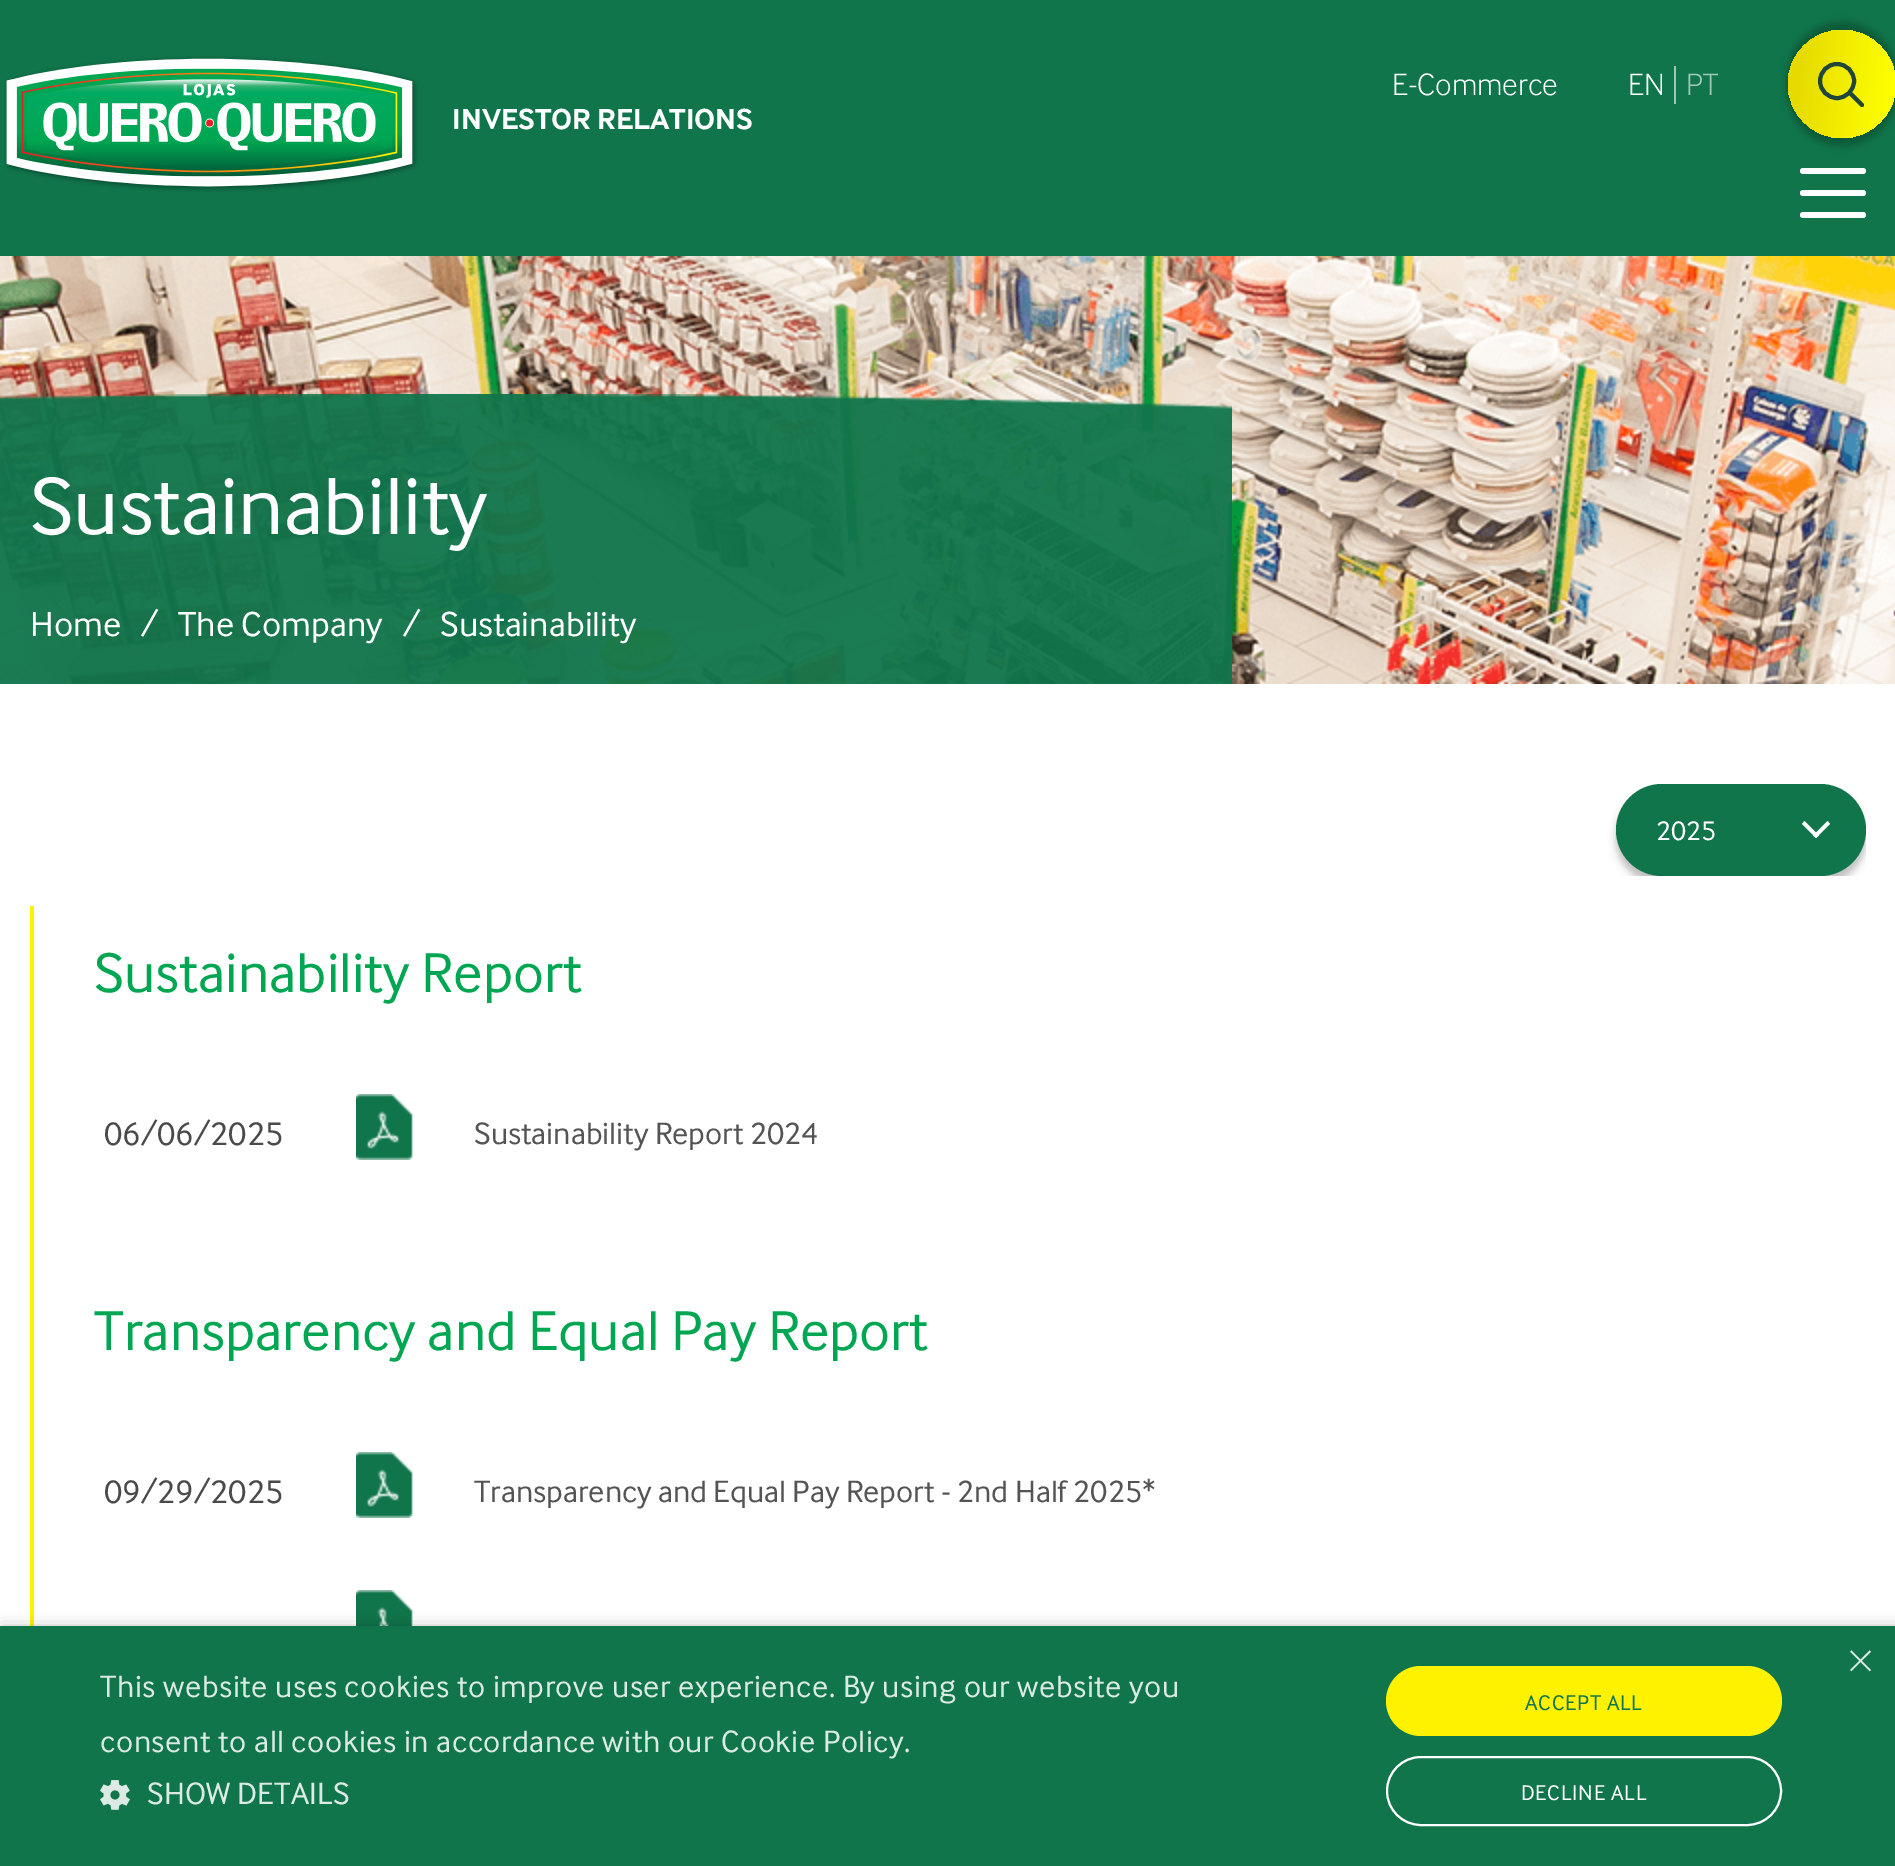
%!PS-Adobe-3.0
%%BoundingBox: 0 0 1895 1866
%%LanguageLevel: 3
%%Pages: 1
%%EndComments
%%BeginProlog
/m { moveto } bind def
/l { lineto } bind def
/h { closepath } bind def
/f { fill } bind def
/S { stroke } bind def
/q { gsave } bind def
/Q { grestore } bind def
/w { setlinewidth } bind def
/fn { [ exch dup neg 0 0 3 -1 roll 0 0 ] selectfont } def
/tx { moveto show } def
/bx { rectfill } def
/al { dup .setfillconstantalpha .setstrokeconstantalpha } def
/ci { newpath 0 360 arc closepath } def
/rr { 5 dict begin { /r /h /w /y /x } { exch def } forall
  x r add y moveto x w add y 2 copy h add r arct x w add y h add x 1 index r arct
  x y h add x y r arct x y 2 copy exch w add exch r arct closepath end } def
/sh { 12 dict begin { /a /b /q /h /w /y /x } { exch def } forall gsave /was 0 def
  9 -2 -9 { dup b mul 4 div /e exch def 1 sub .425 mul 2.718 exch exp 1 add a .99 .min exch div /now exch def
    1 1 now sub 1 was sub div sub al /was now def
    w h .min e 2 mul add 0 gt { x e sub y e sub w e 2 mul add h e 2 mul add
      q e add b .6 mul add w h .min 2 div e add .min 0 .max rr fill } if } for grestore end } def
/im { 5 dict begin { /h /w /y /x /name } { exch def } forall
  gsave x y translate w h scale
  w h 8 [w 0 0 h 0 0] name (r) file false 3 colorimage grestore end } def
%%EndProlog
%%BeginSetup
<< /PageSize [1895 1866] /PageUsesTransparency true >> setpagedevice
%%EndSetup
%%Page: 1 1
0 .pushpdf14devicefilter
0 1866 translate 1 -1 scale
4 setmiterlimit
1 setgray
0 0 1895 1866 bx
0.063 0.459 0.294 setrgbcolor
0 0 1895 256 bx
/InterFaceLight-Light 32 fn
1 setgray
(E-Commerce) 1392 95 tx
(EN) 1628 95 tx
0.624 0.784 0.718 setrgbcolor
(PT) 1686 95 tx
1674 66 2 38 bx
0 setgray
1788 38 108 108 54 4 0.25 sh
1788 22 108 108 54 4 0.25 sh
q 1842 84 54 ci clip newpath
<< /ShadingType 2 /ColorSpace /DeviceRGB /Coords [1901 91 1783 77] /Extend [true true] /Function << /FunctionType 3 /Domain [0 1] /Functions [<< /FunctionType 2 /Domain [0 1] /C0 [1 1 0] /C1 [1 1 0] /N 1 >> << /FunctionType 2 /Domain [0 1] /C0 [1 1 0] /C1 [0.902 0.855 0] /N 1 >> << /FunctionType 2 /Domain [0 1] /C0 [0.902 0.855 0] /C1 [0.902 0.855 0] /N 1 >>] /Bounds [0.07 0.89] /Encode [0 1 0 1 0 1] >> >> shfill Q
0.125 0.275 0.216 setrgbcolor
4 w
1837 81 17 ci S
1 setlinecap
1851 94 m 1862 105 l S
1 setgray
1800 168 66 6 3 rr f
1800 190 66 6 3 rr f
1800 212 66 6 3 rr f
(image0.raw) 4 56 414 136 im
/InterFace-Bold 30 fn
(INVESTOR RELATIONS) 452 129 tx
(image1.raw) 0 256 1895 428 im
(image2.raw) 0 394 1232 290 im
/InterFace-Regular 84 fn
(Sustainability) 30 534 tx
/InterFace-Regular 36 fn
(Home) 30 636 tx
(/) 141 636 tx
(The Company) 178 636 tx
(/) 403 636 tx
(Sustainability) 440 636 tx
q
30 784 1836 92 rectclip
0 setgray
1616 792 250 92 46 4 0.25 sh
Q
0.063 0.459 0.294 setrgbcolor
1616 784 250 92 46 rr f
/InterFace-Regular 28 fn
1 setgray
(2025) 1656 840 tx
1827.5 821 m 1830 824 l 1816 838 l 1813 835.5 l h f
1804.5 821 m 1819 835.5 l 1816 838 l 1802 824 l h f
1 0.949 0 setrgbcolor
30 906 4 720 bx
/InterFace-Regular 58 fn
0 0.651 0.318 setrgbcolor
(Sustainability Report) 94 992 tx
/InterFace-Regular 34 fn
0.29 setgray
(06/06/2025) 104 1145 tx
(image3.raw) 356 1094 57 66 im
/InterFace-Regular 32 fn
0.329 setgray
(Sustainability Report 2024) 474 1144 tx
/InterFace-Regular 58 fn
0 0.651 0.318 setrgbcolor
(Transparency and Equal Pay Report) 94 1350 tx
/InterFace-Regular 34 fn
0.29 setgray
(09/29/2025) 104 1503 tx
(image3.raw) 356 1452 57 66 im
/InterFace-Regular 32 fn
0.329 setgray
(Transparency and Equal Pay Report - 2nd Half 2025*) 474 1502 tx
(image4.raw) 356 1590 57 36 im
0 setgray
2 1630 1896 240 0 8 0.35 sh
0.063 0.459 0.294 setrgbcolor
0 1626 1895 240 bx
/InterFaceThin-Thin 58 fn
0.859 0.918 0.894 setrgbcolor
(×) 1846 1680 tx
/InterFace-Regular 32 fn
100 1697 m 0.6 0 (This website uses cookies to improve user experience. By using our website you) ashow
100 1752 m 0.6 0 (consent to all cookies in accordance with our Cookie Policy.) ashow
(image5.raw) 100 1780 30 30 im
147 1804 m 0.25 0 (SHOW DETAILS) ashow
1 0.949 0 setrgbcolor
1386 1666 396 70 35 rr f
/InterFace-Regular 22 fn
0.063 0.459 0.294 setrgbcolor
1525 1710 m 0.75 0 (ACCEPT ALL) ashow
1 setgray
2 w
0 setlinecap
1387 1757 394 68 34 rr S
1521 1800 m 0.75 0 (DECLINE ALL) ashow
.poppdf14devicefilter showpage
%%EOF
